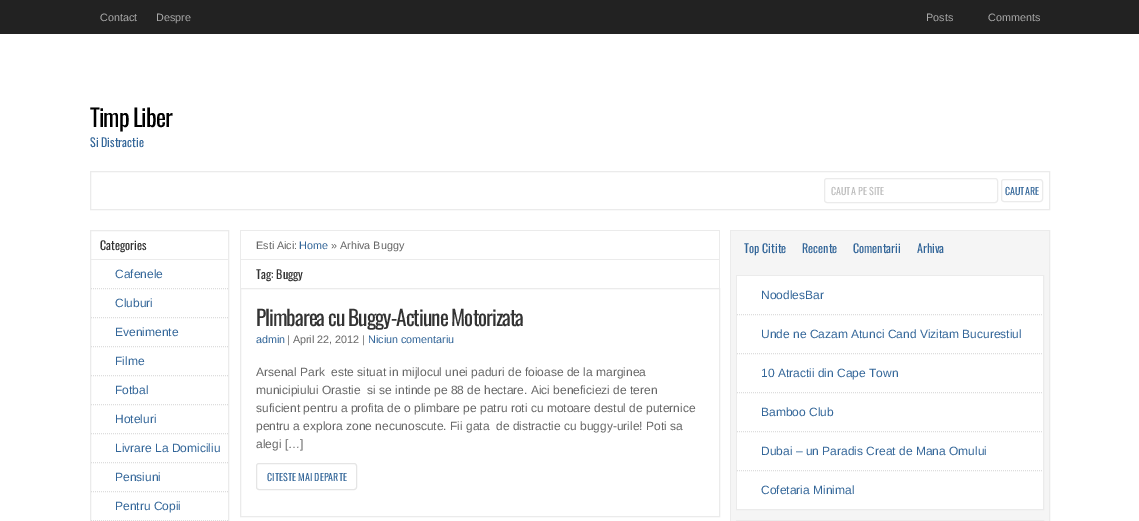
%!PS-Adobe-3.0
%%BoundingBox: 0 0 1139 521
%%LanguageLevel: 3
%%Pages: 1
%%EndComments
%%BeginProlog
/m { moveto } bind def
/l { lineto } bind def
/S { stroke } bind def
/fn { [ exch dup neg 0 0 3 -1 roll 0 0 ] selectfont } def
/tx { moveto show } def
/bx { rectfill } def
/rr { 5 dict begin { /r /h /w /y /x } { exch def } forall
  x r add y moveto x w add y 2 copy h add r arct x w add y h add x 1 index r arct
  x y h add x y r arct x y 2 copy exch w add exch r arct closepath end } def
%%EndProlog
%%BeginSetup
<< /PageSize [1139 521] >> setpagedevice
%%EndSetup
%%Page: 1 1
0 521 translate 1 -1 scale
4 setmiterlimit
1 setgray
0 0 1139 521 bx
0.133 setgray
0 0 1139 34 bx
/LiberationSans-Regular 10.75 fn
0.667 setgray
(Contact) 100 21 tx
(Despre) 156 21 tx
(Posts) 926 21 tx
(Comments) 988 21 tx
/Oswald-Regular 24 fn
0 setgray
90 127 m -1 0 (Timp Liber) ashow
/Oswald-Regular 12 fn
0.2 0.4 0.6 setrgbcolor
(Si Distractie) 90 147 tx
0.922 setgray
90.5 171.5 959 38 rectstroke
824.5 178.5 173 24 2.5 rr S
/Oswald-Regular 10 fn
0.733 setgray
(CAUTA PE SITE) 831 195 tx
0.922 setgray
1001.5 179.5 41 22 2.5 rr S
0.2 0.4 0.6 setrgbcolor
(CAUTARE) 1005 195 tx
0.922 setgray
90.5 230.5 138 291 rectstroke
91 259 137 1 bx
/Oswald-Regular 12 fn
0.2 setgray
(Categories) 100 250 tx
0.867 setgray
[1 1] 0 setdash
91 288.5 m 228 288.5 l S
/LiberationSans-Regular 12 fn
0.2 0.4 0.6 setrgbcolor
(Cafenele) 115 278 tx
0.867 setgray
91 317.5 m 228 317.5 l S
0.2 0.4 0.6 setrgbcolor
(Cluburi) 115 307 tx
0.867 setgray
91 346.5 m 228 346.5 l S
0.2 0.4 0.6 setrgbcolor
(Evenimente) 115 336 tx
0.867 setgray
91 375.5 m 228 375.5 l S
0.2 0.4 0.6 setrgbcolor
(Filme) 115 365 tx
0.867 setgray
91 404.5 m 228 404.5 l S
0.2 0.4 0.6 setrgbcolor
(Fotbal) 115 394 tx
0.867 setgray
91 433.5 m 228 433.5 l S
0.2 0.4 0.6 setrgbcolor
(Hoteluri) 115 423 tx
0.867 setgray
91 462.5 m 228 462.5 l S
0.2 0.4 0.6 setrgbcolor
(Livrare La Domiciliu) 115 452 tx
0.867 setgray
91 491.5 m 228 491.5 l S
0.2 0.4 0.6 setrgbcolor
(Pensiuni) 115 481 tx
0.867 setgray
91 520.5 m 228 520.5 l S
0.2 0.4 0.6 setrgbcolor
(Pentru Copii) 115 510 tx
0.922 setgray
240 230 480 1 bx
719 230 1 29 bx
240 230 1 29 bx
/LiberationSans-Regular 10.75 fn
0.4 setgray
(Esti Aici:) 256 249 tx
0.2 0.4 0.6 setrgbcolor
(Home) 299 249 tx
0.4 setgray
(» Arhiva Buggy) 331 249 tx
0.922 setgray
240 259 480 1 bx
719 259 1 29 bx
240 259 1 29 bx
/Oswald-Regular 12 fn
0.2 setgray
(Tag: Buggy) 256 279 tx
0.922 setgray
[] 0 setdash
240.5 288.5 479 228 rectstroke
/Oswald-Regular 21.3 fn
0.2 setgray
256 326 m -1 0 (Plimbarea cu Buggy-Actiune Motorizata) ashow
/LiberationSans-Regular 10.75 fn
0.2 0.4 0.6 setrgbcolor
(admin) 256 343 tx
0.4 setgray
(| April 22, 2012 |) 287 343 tx
0.2 0.4 0.6 setrgbcolor
(Niciun comentariu) 368 343 tx
/LiberationSans-Regular 12 fn
0.4 setgray
(Arsenal Park  este situat in mijlocul unei paduri de foioase de la marginea) 256 376 tx
(municipiului Orastie  si se intinde pe 88 de hectare. Aici beneficiezi de teren) 256 394 tx
(suficient pentru a profita de o plimbare pe patru roti cu motoare destul de puternice) 256 412 tx
(pentru a explora zone necunoscute. Fii gata  de distractie cu buggy-urile! Poti sa) 256 430 tx
(alegi […]) 256 448 tx
0.898 setgray
256.5 463.5 100 26 2.5 rr S
/Oswald-Regular 10 fn
0.2 0.4 0.6 setrgbcolor
(CITESTE MAI DEPARTE) 267 481 tx
0.922 setgray
730.5 230.5 319 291 rectstroke
0.961 setgray
731 231 318 290 bx
/Oswald-Regular 12 fn
0.2 0.4 0.6 setrgbcolor
(Top Citite) 744 253 tx
(Recente) 802 253 tx
(Comentarii) 853 253 tx
(Arhiva) 917 253 tx
0.922 setgray
736.5 275.5 307 234 rectstroke
1 setgray
737 276 306 233 bx
0.867 setgray
[1 1] 0 setdash
737 314.5 m 1043 314.5 l S
/LiberationSans-Regular 12 fn
0.2 0.4 0.6 setrgbcolor
(NoodlesBar) 761 299 tx
0.867 setgray
737 353.5 m 1043 353.5 l S
0.2 0.4 0.6 setrgbcolor
(Unde ne Cazam Atunci Cand Vizitam Bucurestiul) 761 338 tx
0.867 setgray
737 392.5 m 1043 392.5 l S
0.2 0.4 0.6 setrgbcolor
(10 Atractii din Cape Town) 761 377 tx
0.867 setgray
737 431.5 m 1043 431.5 l S
0.2 0.4 0.6 setrgbcolor
(Bamboo Club) 761 416 tx
0.867 setgray
737 470.5 m 1043 470.5 l S
0.2 0.4 0.6 setrgbcolor
(Dubai – un Paradis Creat de Mana Omului) 761 455 tx
(Cofetaria Minimal) 761 494 tx
0.922 setgray
[] 0 setdash
736.5 520.5 307 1 rectstroke
showpage
%%EOF
